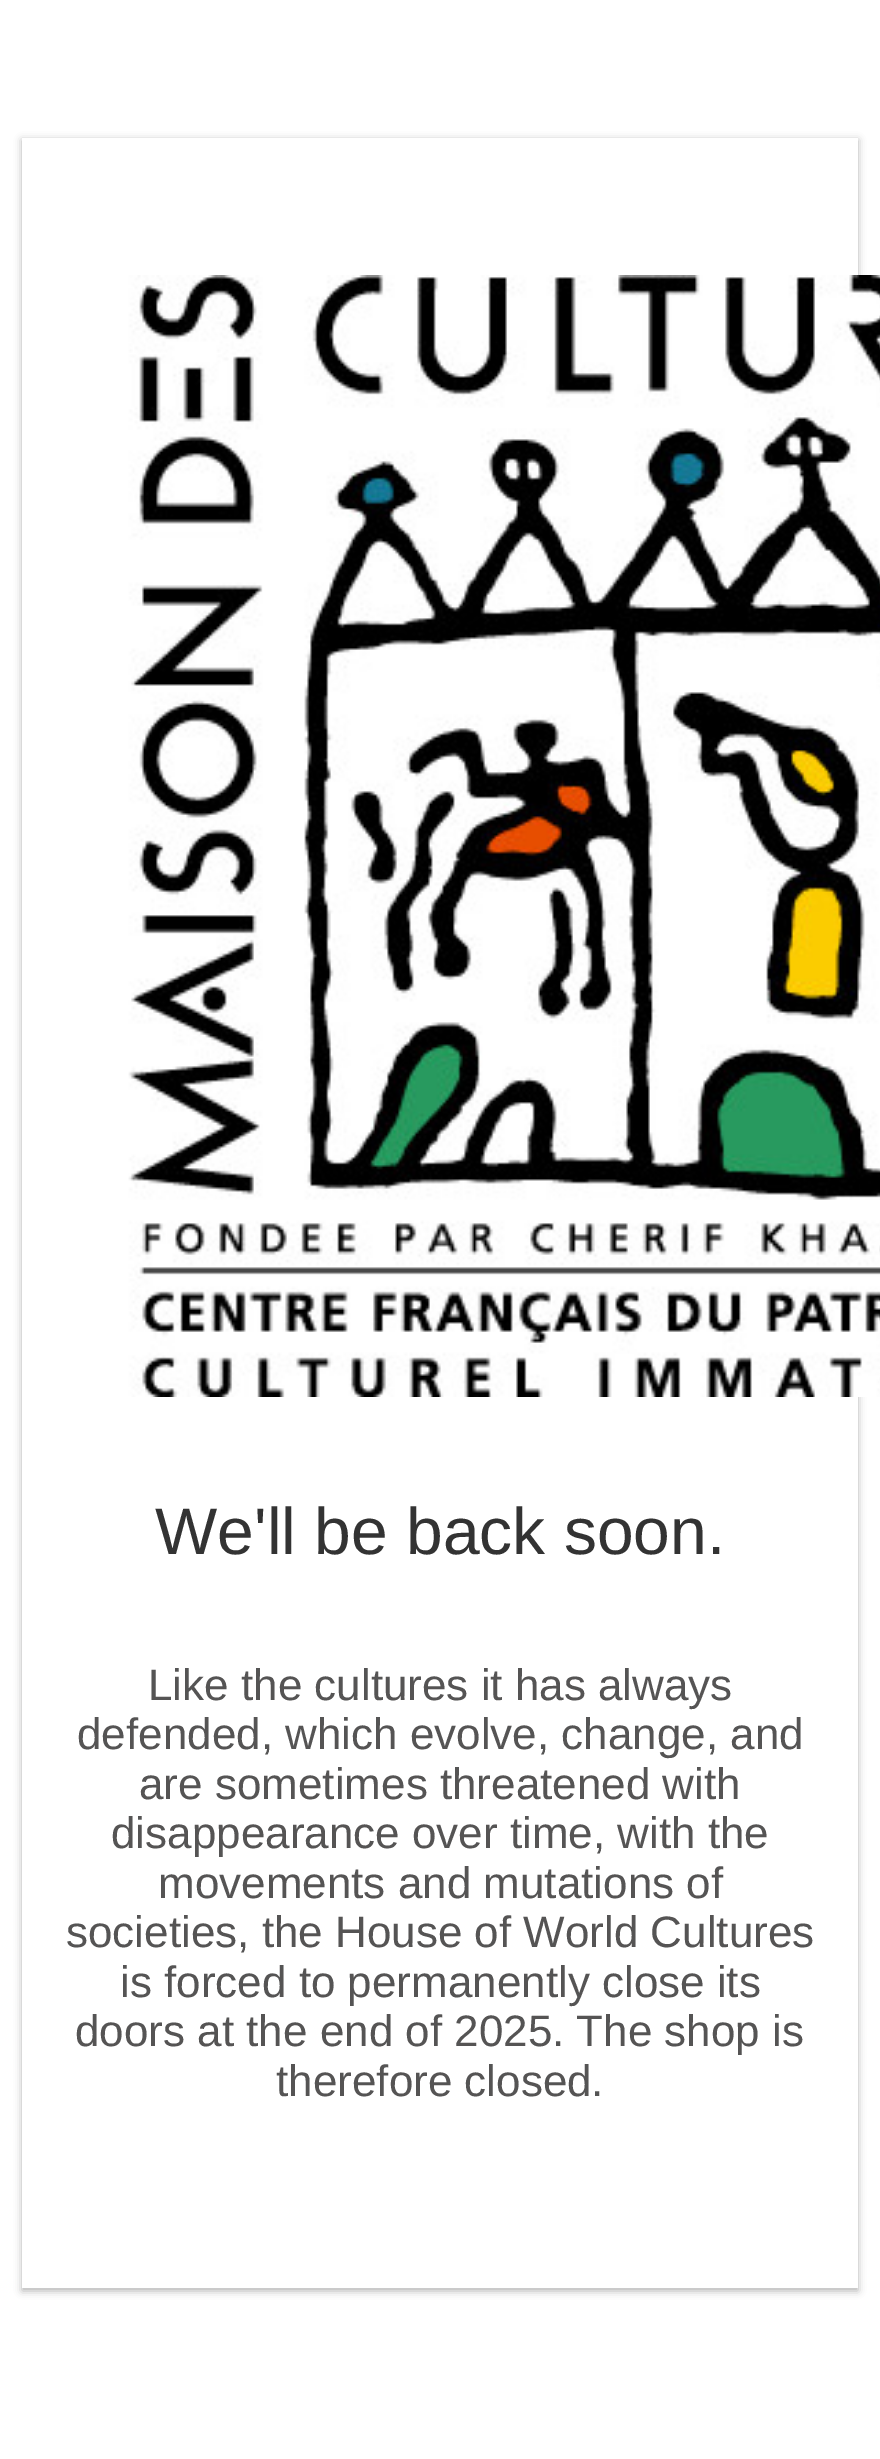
%!PS-Adobe-3.0
%%BoundingBox: 0 0 880 2459
%%LanguageLevel: 3
%%Pages: 1
%%EndComments
%%BeginProlog
/m { moveto } bind def
/l { lineto } bind def
/h { closepath } bind def
/q { gsave } bind def
/Q { grestore } bind def
/fn { [ exch dup neg 0 0 3 -1 roll 0 0 ] selectfont } def
/tx { moveto show } def
/bx { rectfill } def
/al { dup .setfillconstantalpha .setstrokeconstantalpha } def
/rr { 5 dict begin { /r /h /w /y /x } { exch def } forall
  x r add y moveto x w add y 2 copy h add r arct x w add y h add x 1 index r arct
  x y h add x y r arct x y 2 copy exch w add exch r arct closepath end } def
/sh { 12 dict begin { /a /b /q /h /w /y /x } { exch def } forall gsave /was 0 def
  9 -2 -9 { dup b mul 4 div /e exch def 1 sub .425 mul 2.718 exch exp 1 add a .99 .min exch div /now exch def
    1 1 now sub 1 was sub div sub al /was now def
    w h .min e 2 mul add 0 gt { x e sub y e sub w e 2 mul add h e 2 mul add
      q e add b .6 mul add w h .min 2 div e add .min 0 .max rr fill } if } for grestore end } def
/im { 5 dict begin { /h /w /y /x /name } { exch def } forall
  gsave x y translate w h scale
  w h 8 [w 0 0 h 0 0] name (r) file false 3 colorimage grestore end } def
%%EndProlog
%%BeginSetup
<< /PageSize [880 2459] /PageUsesTransparency true >> setpagedevice
%%EndSetup
%%Page: 1 1
0 .pushpdf14devicefilter
0 2459 translate 1 -1 scale
4 setmiterlimit
1 setgray
0 0 880 2459 bx
q
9 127 m 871 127 l 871 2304 l 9 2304 l h 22 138 m 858 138 l 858 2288 l 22 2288 l h eoclip newpath
0 setgray
22 140 836 2151 0 4 0.3 sh
Q
(image0.raw) 128 275 752 1122 im
/LiberationSans-Regular 66 fn
0.2 setgray
(We'll be back soon.) 155 1554 tx
/LiberationSans-Regular 44 fn
0.333 0.329 0.329 setrgbcolor
(Like the cultures it has always) 148 1700 tx
(defended, which evolve, change, and) 77 1749 tx
(are sometimes threatened with) 139 1799 tx
(disappearance over time, with the) 111 1848 tx
(movements and mutations of) 158 1898 tx
(societies, the House of World Cultures) 66 1947 tx
(is forced to permanently close its) 120 1997 tx
(doors at the end of 2025. The shop is) 75 2046 tx
(therefore closed.) 276 2096 tx
.poppdf14devicefilter showpage
%%EOF
